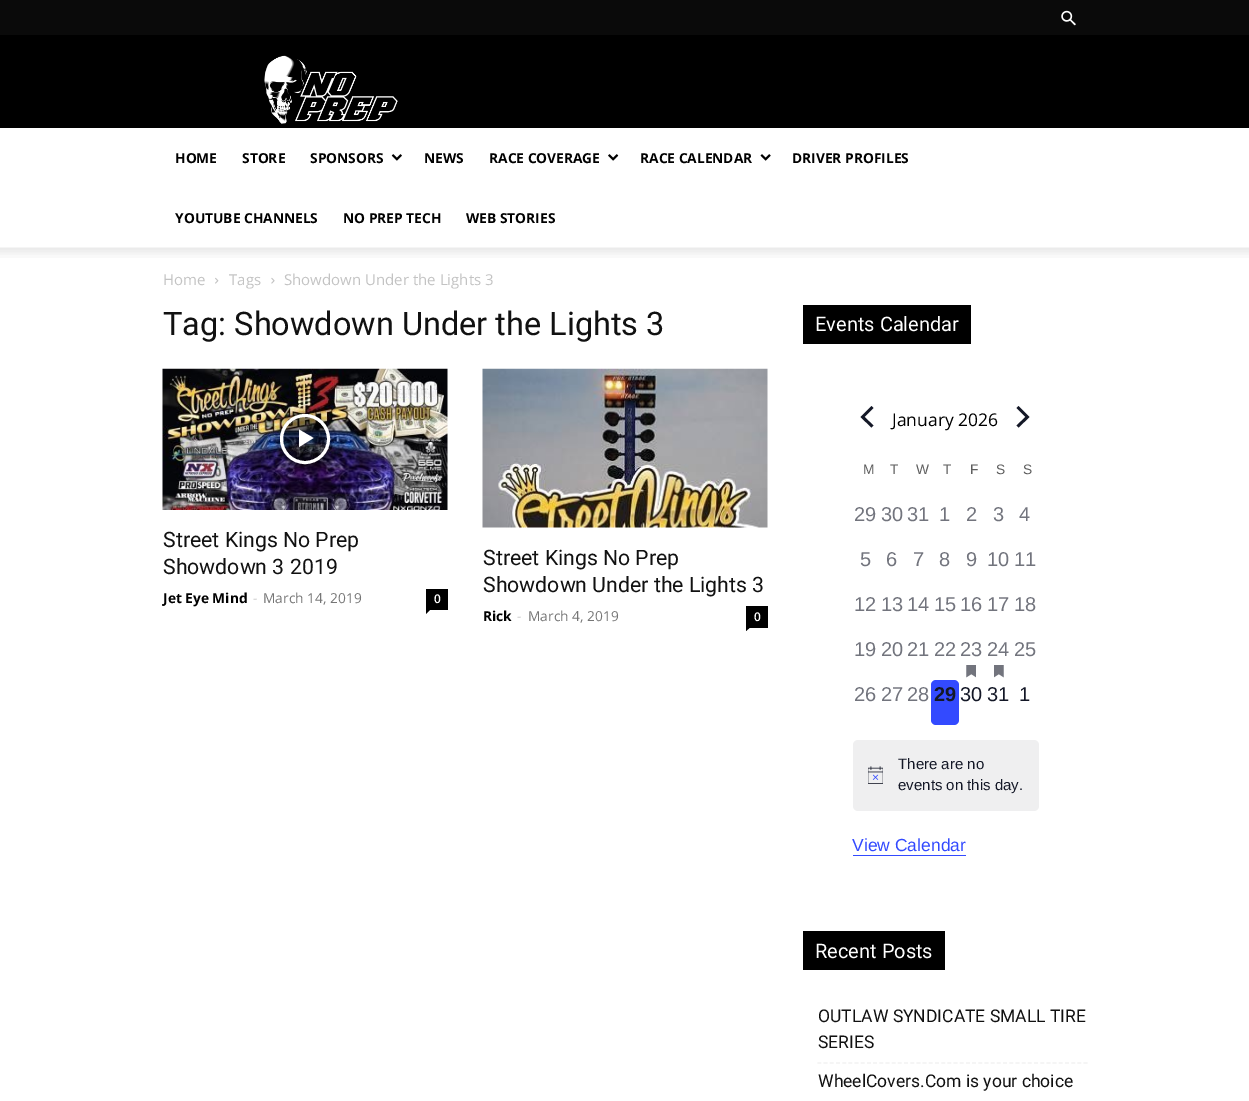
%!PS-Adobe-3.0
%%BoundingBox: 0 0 1249 1101
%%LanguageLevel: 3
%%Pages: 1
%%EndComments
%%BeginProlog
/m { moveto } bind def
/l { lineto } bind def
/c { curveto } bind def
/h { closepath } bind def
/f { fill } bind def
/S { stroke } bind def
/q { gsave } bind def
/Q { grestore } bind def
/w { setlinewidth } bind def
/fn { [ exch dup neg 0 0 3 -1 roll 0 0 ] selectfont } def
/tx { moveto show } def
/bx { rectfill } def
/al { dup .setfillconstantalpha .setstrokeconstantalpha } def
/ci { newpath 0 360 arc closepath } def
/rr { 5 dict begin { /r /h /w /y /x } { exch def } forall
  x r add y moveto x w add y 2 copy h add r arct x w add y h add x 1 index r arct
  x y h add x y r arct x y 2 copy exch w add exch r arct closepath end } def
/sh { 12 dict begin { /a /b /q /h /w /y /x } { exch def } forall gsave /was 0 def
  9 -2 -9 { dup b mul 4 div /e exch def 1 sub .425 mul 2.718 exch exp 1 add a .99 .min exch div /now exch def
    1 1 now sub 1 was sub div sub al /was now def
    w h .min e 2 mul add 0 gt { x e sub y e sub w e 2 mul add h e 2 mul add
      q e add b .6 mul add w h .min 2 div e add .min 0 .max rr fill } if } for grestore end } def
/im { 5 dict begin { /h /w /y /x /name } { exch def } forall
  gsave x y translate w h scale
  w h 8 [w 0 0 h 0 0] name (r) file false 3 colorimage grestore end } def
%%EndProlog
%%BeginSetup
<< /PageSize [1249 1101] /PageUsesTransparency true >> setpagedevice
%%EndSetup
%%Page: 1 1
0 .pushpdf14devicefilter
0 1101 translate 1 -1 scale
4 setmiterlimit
1 setgray
0 0 1249 1101 bx
0.039 setgray
0 0 1249 35 bx
(image0.raw) 1061 10 15 16 im
0 setgray
0 35 1249 93 bx
(image1.raw) 264 55 134 69 im
/OpenSans-Bold 13.75 fn
(HOME) 175 163 tx
(STORE) 242 163 tx
(SPONSORS) 310 163 tx
(image2.raw) 391 154 11 7 im
(NEWS) 424 163 tx
(RACE COVERAGE) 489 163 tx
(image3.raw) 608 154 11 7 im
(RACE CALENDAR) 640 163 tx
(image4.raw) 760 154 11 7 im
(DRIVER PROFILES) 792 163 tx
(YOUTUBE CHANNELS) 175 223 tx
(NO PREP TECH) 343 223 tx
(WEB STORIES) 466 223 tx
(image5.raw) 0 247 1249 11 im
/OpenSans-Regular 15 fn
0.765 setgray
(Home) 163 285 tx
(image6.raw) 215 277 4 7 im
(Tags) 229 285 tx
(image7.raw) 271 277 4 7 im
(Showdown Under the Lights 3) 284 285 tx
/Roboto-Regular 32.5 fn
0.067 setgray
(Tag: Showdown Under the Lights 3) 163 335 tx
(image8.raw) 162 368 286 142 im
q
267 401 m 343 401 l 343 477 l 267 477 l h 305 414 m 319 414 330 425 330 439 c 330 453 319 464 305 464 c 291 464 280 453 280 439 c 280 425 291 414 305 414 c h eoclip newpath
0 setgray
280 414 50 50 25 4 0.4 sh
Q
0.48 al
0 setgray
305 439 23.5 ci f
1 al
1 setgray
3 w
305 439 23.5 ci S
299 429.5 m 299 447 l 313.5 438 l h f
/Roboto-Regular 21.25 fn
0.067 setgray
(Street Kings No Prep) 163 547 tx
(Showdown 3 2019) 163 574 tx
/OpenSans-Bold 13.75 fn
0 setgray
(Jet Eye Mind) 163 603 tx
/OpenSans-Regular 13.75 fn
0.8 setgray
(-) 253 603 tx
0.463 setgray
(March 14, 2019) 263 603 tx
0 setgray
426 589 22 21 bx
/OpenSans-SemiBold 12 fn
1 setgray
(0) 434 603 tx
0 setgray
426 610 m 430 610 l 426 614 l h f
(image9.raw) 482 368 286 160 im
/Roboto-Regular 21.25 fn
0.067 setgray
(Street Kings No Prep) 483 565 tx
(Showdown Under the Lights 3) 483 592 tx
/OpenSans-Bold 13.75 fn
0 setgray
(Rick) 483 621 tx
/OpenSans-Regular 13.75 fn
0.8 setgray
(-) 517 621 tx
0.463 setgray
(March 4, 2019) 528 621 tx
0 setgray
746 606 22 22 bx
/OpenSans-SemiBold 12 fn
1 setgray
(0) 754 621 tx
0 setgray
746 627.5 m 750 627.5 l 746 631 l h f
803 305 168 39 bx
/Roboto-Regular 20 fn
1 setgray
(Events Calendar) 815 331 tx
0.078 0.094 0.153 setrgbcolor
873.5 425.5 m 871.5 427.5 l 860.5 417 l 871.5 406 l 873.5 408 l 864.5 417 l h f
/OpenSans-Regular 17.5 fn
0 setgray
(January 2026) 892 426 tx
0.078 0.094 0.153 setrgbcolor
1016.5 408 m 1018.5 406 l 1029.5 417 l 1018.5 427.5 l 1016.5 425.5 l 1025.5 417 l h f
/LiberationSans-Regular 13.75 fn
0.365 setgray
(M) 863 474 tx
(T) 890 474 tx
(W) 916 474 tx
(T) 943 474 tx
(F) 970 474 tx
(S) 996 474 tx
(S) 1023 474 tx
/LiberationSans-Regular 20 fn
0.447 0.455 0.49 setrgbcolor
(29) 854 521 tx
(30) 881 521 tx
(31) 907 521 tx
(1) 939 521 tx
(2) 966 521 tx
(3) 993 521 tx
(4) 1019 521 tx
(5) 860 566 tx
(6) 886 566 tx
(7) 913 566 tx
(8) 939 566 tx
(9) 966 566 tx
(10) 987 566 tx
(11) 1014 566 tx
(12) 854 611 tx
(13) 881 611 tx
(14) 907 611 tx
(15) 934 611 tx
(16) 960 611 tx
(17) 987 611 tx
(18) 1014 611 tx
(19) 854 656 tx
(20) 881 656 tx
(21) 907 656 tx
(22) 934 656 tx
(23) 960 656 tx
(image10.raw) 966 665 10 13 im
(24) 987 656 tx
(image11.raw) 994 665 10 13 im
(25) 1014 656 tx
(26) 854 701 tx
(27) 881 701 tx
(28) 907 701 tx
0.2 0.29 1 setrgbcolor
931 680 28 45 5 rr f
/LiberationSans-Bold 20 fn
0.078 0.094 0.153 setrgbcolor
(29) 934 701 tx
/LiberationSans-Regular 20 fn
(30) 960 701 tx
(31) 987 701 tx
(1) 1019 701 tx
0.937 0.937 0.941 setrgbcolor
853 740 186 71 5 rr f
(image12.raw) 868 766 15 18 im
/LiberationSans-Regular 15 fn
0.078 0.094 0.153 setrgbcolor
(There are no) 898 769 tx
(events on this day.) 898 790 tx
/LiberationSans-Regular 17.5 fn
0.2 0.29 1 setrgbcolor
(View Calendar) 852 851 tx
853 855 113 1 bx
0 setgray
803 931 142 39 bx
/Roboto-Regular 20 fn
1 setgray
(Recent Posts) 815 958 tx
0.945 setgray
1.2 w
[3.75 2.44] 0 setdash
817.5 1063 m 1087.5 1063 l S
/Roboto-Regular 17.5 fn
0.067 setgray
(OUTLAW SYNDICATE SMALL TIRE) 818 1022 tx
(SERIES) 818 1048 tx
(WheelCovers.Com is your choice) 818 1087 tx
.poppdf14devicefilter showpage
%%EOF
